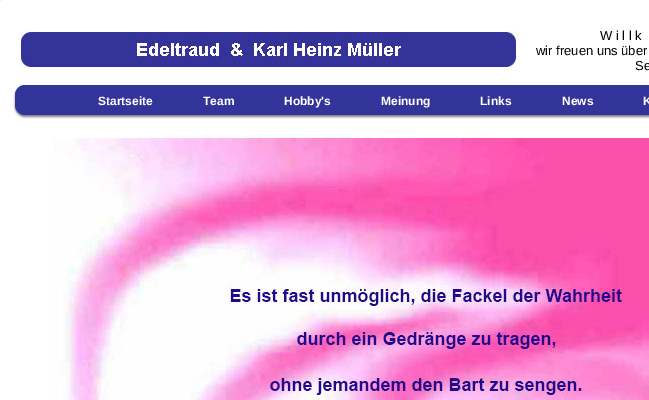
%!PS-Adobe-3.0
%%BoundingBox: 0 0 649 400
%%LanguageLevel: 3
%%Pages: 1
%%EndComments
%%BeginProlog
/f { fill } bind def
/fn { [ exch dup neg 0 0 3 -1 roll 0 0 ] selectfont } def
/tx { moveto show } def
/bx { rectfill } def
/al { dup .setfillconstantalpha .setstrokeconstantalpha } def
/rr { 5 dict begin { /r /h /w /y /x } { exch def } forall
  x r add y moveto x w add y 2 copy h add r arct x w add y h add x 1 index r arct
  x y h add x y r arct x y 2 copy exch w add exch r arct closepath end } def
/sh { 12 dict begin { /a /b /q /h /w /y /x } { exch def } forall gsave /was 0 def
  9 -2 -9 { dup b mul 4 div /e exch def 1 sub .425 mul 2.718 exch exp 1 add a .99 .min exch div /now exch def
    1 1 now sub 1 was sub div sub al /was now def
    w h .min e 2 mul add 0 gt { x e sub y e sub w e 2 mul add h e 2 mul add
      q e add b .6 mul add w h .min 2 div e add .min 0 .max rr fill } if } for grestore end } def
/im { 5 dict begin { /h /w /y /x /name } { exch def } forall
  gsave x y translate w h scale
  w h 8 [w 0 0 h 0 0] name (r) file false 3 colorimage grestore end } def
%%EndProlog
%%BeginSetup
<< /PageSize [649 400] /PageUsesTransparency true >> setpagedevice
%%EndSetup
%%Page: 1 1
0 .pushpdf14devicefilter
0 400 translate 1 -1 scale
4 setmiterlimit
0.933 setgray
0 0 649 400 bx
1 setgray
0 0 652 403 3 rr f
(image0.raw) 18 31 500 38 im
/LiberationSans-Regular 13 fn
0 setgray
(W i l l k) 600 40 tx
(wir freuen uns über) 536 55 tx
(Se) 635 70 tx
15 87 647 30 10 1 0.5 sh
0.2 0.204 0.6 setrgbcolor
15 85 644 30 10 rr f
/LiberationSans-Bold 12 fn
1 setgray
(Startseite) 98 105 tx
(Team) 203 105 tx
(Hobby's) 284 105 tx
(Meinung) 381 105 tx
(Links) 480 105 tx
(News) 562 105 tx
(K) 643 105 tx
(image1.raw) 54 138 595 262 im
.poppdf14devicefilter showpage
%%EOF
